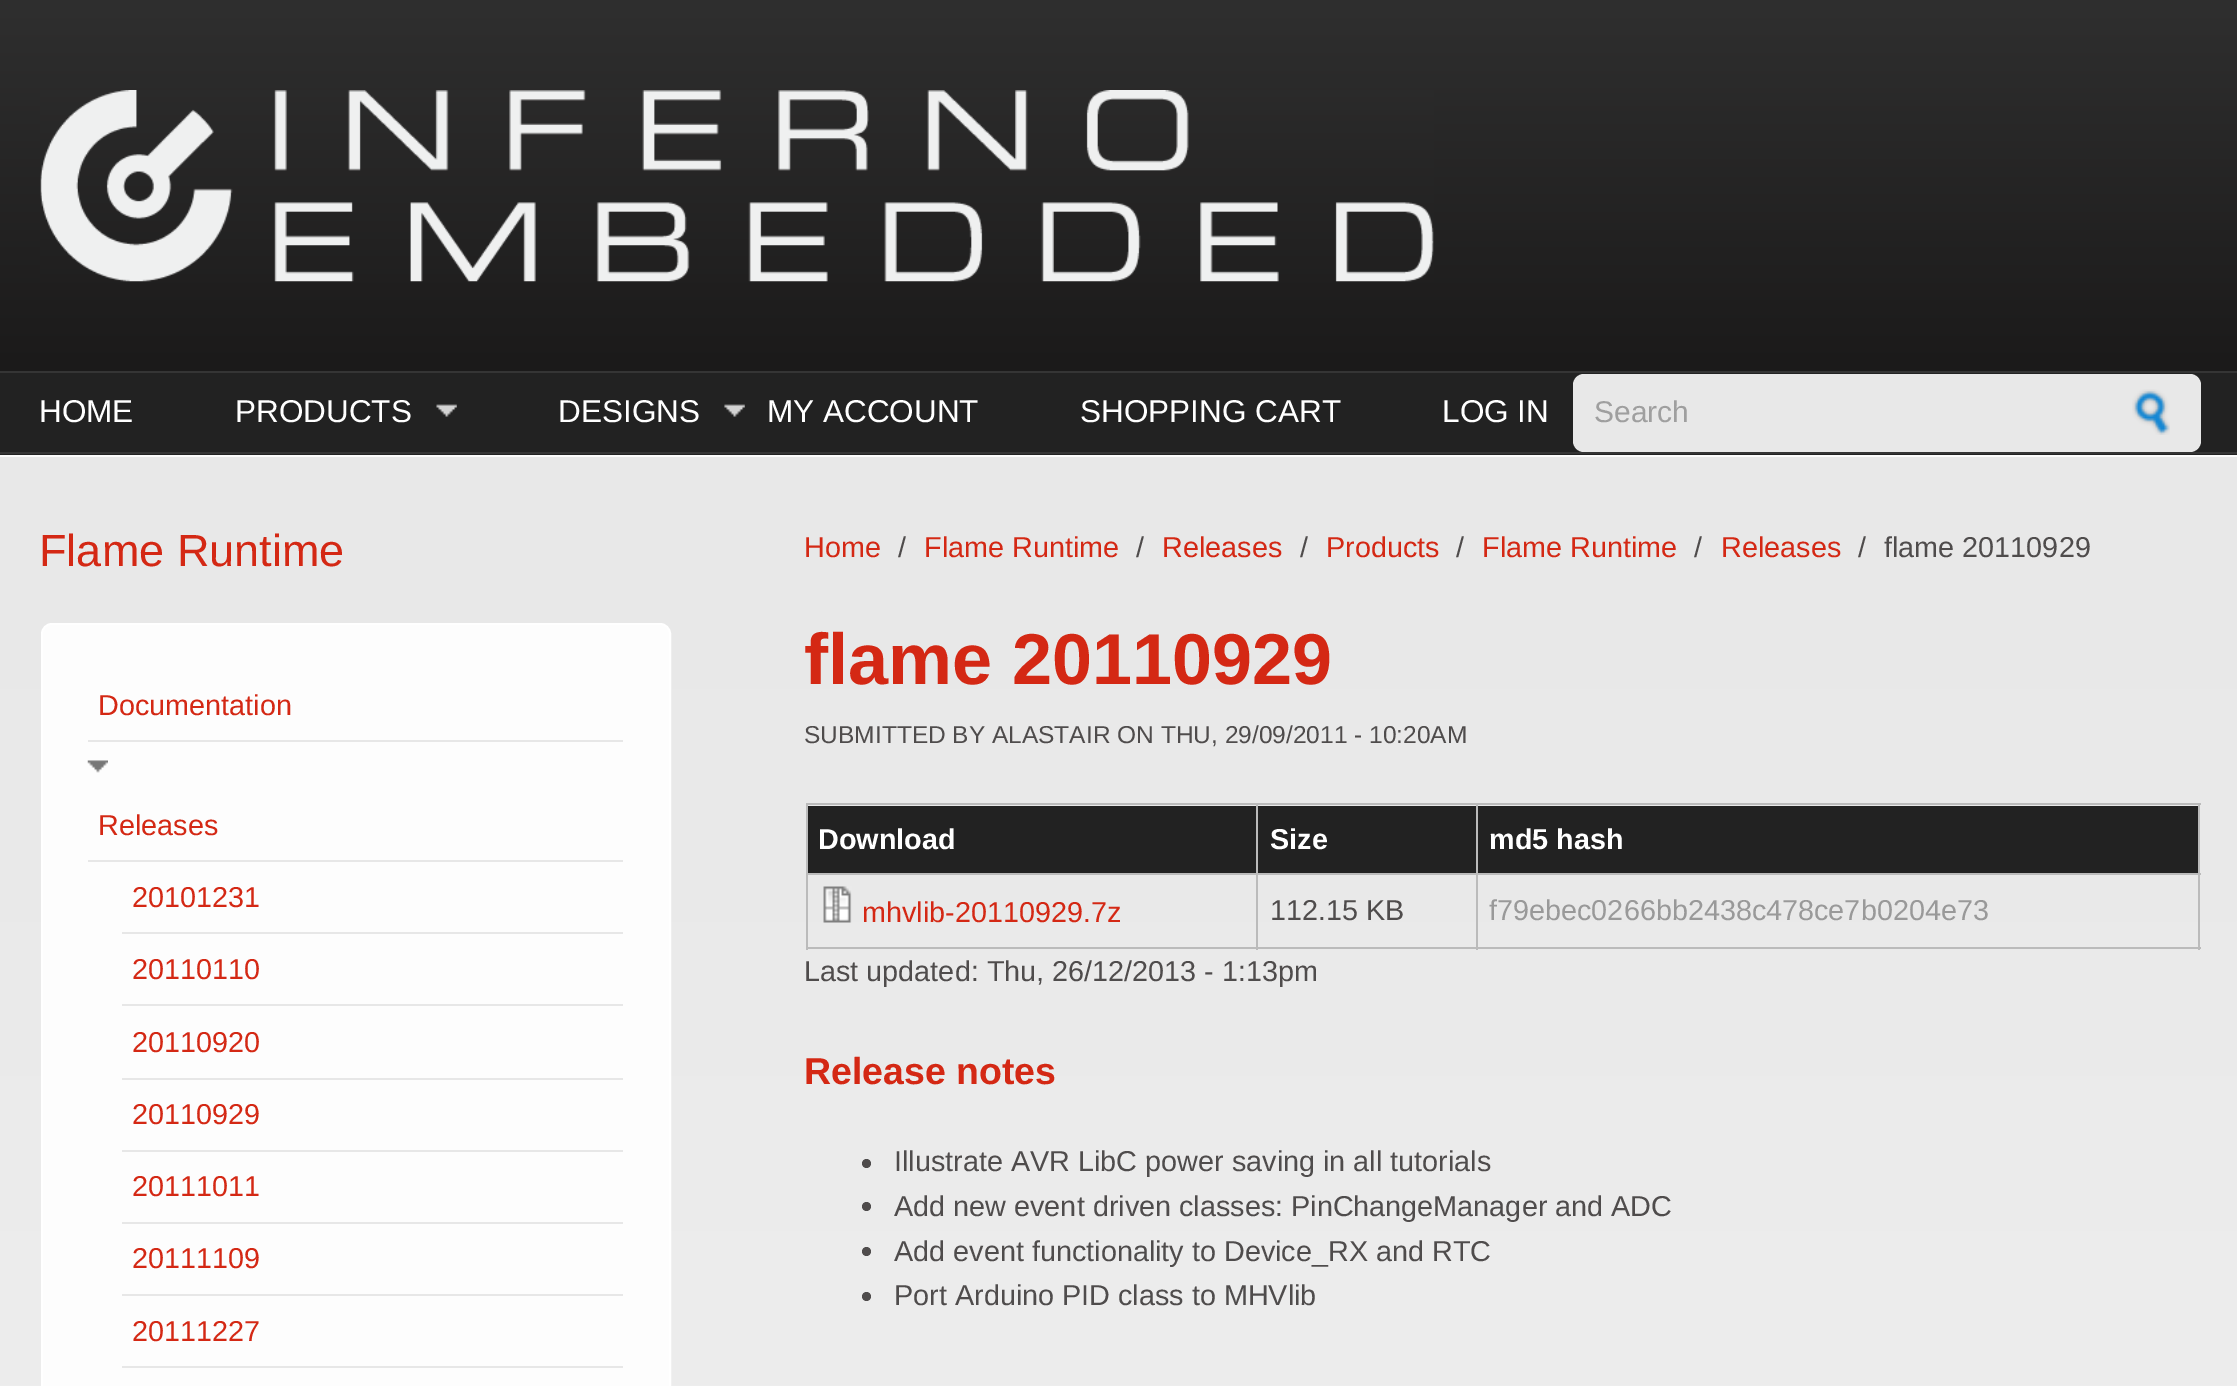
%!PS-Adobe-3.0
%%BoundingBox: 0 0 2237 1386
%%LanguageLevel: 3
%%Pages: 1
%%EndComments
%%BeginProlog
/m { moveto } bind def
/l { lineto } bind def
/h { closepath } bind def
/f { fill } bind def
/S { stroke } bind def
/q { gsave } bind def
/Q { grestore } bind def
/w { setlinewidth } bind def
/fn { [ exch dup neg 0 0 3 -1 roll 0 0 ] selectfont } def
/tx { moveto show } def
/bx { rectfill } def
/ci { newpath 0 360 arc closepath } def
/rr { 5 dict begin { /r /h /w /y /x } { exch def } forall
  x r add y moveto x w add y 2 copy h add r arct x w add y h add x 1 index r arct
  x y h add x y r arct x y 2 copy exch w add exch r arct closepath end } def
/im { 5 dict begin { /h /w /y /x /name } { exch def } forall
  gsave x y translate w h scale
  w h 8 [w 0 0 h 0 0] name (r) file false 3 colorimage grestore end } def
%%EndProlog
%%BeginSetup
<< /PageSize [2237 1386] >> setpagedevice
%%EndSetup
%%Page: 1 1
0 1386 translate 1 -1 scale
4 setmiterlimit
1 setgray
0 0 2237 1386 bx
q 0 0 m 2237 0 l 2237 371 l 0 371 l h clip newpath
<< /ShadingType 2 /ColorSpace /DeviceRGB /Coords [1119 0 1119 371] /Extend [true true] /Function << /FunctionType 2 /Domain [0 1] /C0 [0.184 0.184 0.184] /C1 [0.106 0.102 0.102] /N 1 >> >> shfill Q
(image0.raw) 40 90 1394 192 im
0.133 setgray
0 373 2237 82 bx
0.208 setgray
0 371 2237 2 bx
0 452 2237 2 bx
/LiberationSans-Regular 31.5 fn
1 setgray
(HOME) 39 422 tx
(PRODUCTS) 235 422 tx
(image1.raw) 436 404 21 13 im
(DESIGNS) 558 422 tx
(image2.raw) 724 404 21 13 im
(MY ACCOUNT) 767 422 tx
(SHOPPING CART) 1080 422 tx
(LOG IN) 1442 422 tx
0.91 setgray
1573 374 628 78 11 rr f
/LiberationSans-Regular 30 fn
0.624 setgray
(Search) 1594 422 tx
(image3.raw) 2132 389 38 46 im
0.988 setgray
0 455 2237 2 bx
q 0 457 m 2237 457 l 2237 1386 l 0 1386 l h clip newpath
<< /ShadingType 2 /ColorSpace /DeviceRGB /Coords [1119 457 1119 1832] /Extend [true true] /Function << /FunctionType 2 /Domain [0 1] /C0 [0.91 0.91 0.91] /C1 [0.937 0.937 0.937] /N 1 >> >> shfill Q
/LiberationSans-Regular 45 fn
0.831 0.157 0.078 setrgbcolor
(Flame Runtime) 39 566 tx
0.992 setgray
42 624 628 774 10 rr q f Q
1 setgray
2 w
S
0.906 setgray
88 740 535 2 bx
/LiberationSans-Regular 28.8 fn
0.831 0.157 0.078 setrgbcolor
(Documentation) 98 715 tx
(image4.raw) 87 760 21 13 im
0.906 setgray
88 860 535 2 bx
0.831 0.157 0.078 setrgbcolor
(Releases) 98 835 tx
0.906 setgray
122 932 501 2 bx
0.831 0.157 0.078 setrgbcolor
(20101231) 132 907 tx
0.906 setgray
122 1004 501 2 bx
0.831 0.157 0.078 setrgbcolor
(20110110) 132 979 tx
0.906 setgray
122 1078 501 2 bx
0.831 0.157 0.078 setrgbcolor
(20110920) 132 1052 tx
0.906 setgray
122 1150 501 2 bx
0.831 0.157 0.078 setrgbcolor
(20110929) 132 1124 tx
0.906 setgray
122 1222 501 2 bx
0.831 0.157 0.078 setrgbcolor
(20111011) 132 1196 tx
0.906 setgray
122 1294 501 2 bx
0.831 0.157 0.078 setrgbcolor
(20111109) 132 1268 tx
0.906 setgray
122 1366 501 2 bx
0.831 0.157 0.078 setrgbcolor
(20111227) 132 1341 tx
(Home) 804 557 tx
0.31 0.298 0.298 setrgbcolor
(/) 898 557 tx
0.831 0.157 0.078 setrgbcolor
(Flame Runtime) 924 557 tx
0.31 0.298 0.298 setrgbcolor
(/) 1136 557 tx
0.831 0.157 0.078 setrgbcolor
(Releases) 1162 557 tx
0.31 0.298 0.298 setrgbcolor
(/) 1300 557 tx
0.831 0.157 0.078 setrgbcolor
(Products) 1326 557 tx
0.31 0.298 0.298 setrgbcolor
(/) 1456 557 tx
0.831 0.157 0.078 setrgbcolor
(Flame Runtime) 1482 557 tx
0.31 0.298 0.298 setrgbcolor
(/) 1694 557 tx
0.831 0.157 0.078 setrgbcolor
(Releases) 1721 557 tx
0.31 0.298 0.298 setrgbcolor
(/) 1858 557 tx
(flame 20110929) 1884 557 tx
/LiberationSans-Bold 72 fn
0.831 0.157 0.078 setrgbcolor
(flame 20110929) 804 684 tx
/LiberationSans-Regular 24.5 fn
0.31 0.298 0.298 setrgbcolor
(SUBMITTED BY ALASTAIR ON THU, 29/09/2011 - 10:20AM) 804 743 tx
0.133 setgray
808 806 448 67 bx
0.733 setgray
1476 803 725 2 bx
1476 873 725 2 bx
2198 873 2 77 bx
1476 947 725 2 bx
1476 873 2 77 bx
1256 873 222 2 bx
1476 803 2 72 bx
1256 803 222 2 bx
1256 947 222 2 bx
1256 873 2 77 bx
806 873 452 2 bx
1256 803 2 72 bx
806 803 452 2 bx
806 947 452 2 bx
806 873 2 77 bx
806 803 2 72 bx
/LiberationSans-Bold 28.8 fn
1 setgray
(Download) 818 849 tx
0.133 setgray
1258 806 218 67 bx
1 setgray
(Size) 1270 849 tx
0.133 setgray
1478 806 720 67 bx
0.733 setgray
2198 803 2 72 bx
1 setgray
(md5 hash) 1489 849 tx
(image5.raw) 823 886 29 37 im
/LiberationSans-Regular 28.8 fn
0.831 0.157 0.078 setrgbcolor
(mhvlib-20110929.7z) 862 922 tx
0.31 0.298 0.298 setrgbcolor
(112.15 KB) 1270 920 tx
0.6 setgray
(f79ebec0266bb2438c478ce7b0204e73) 1489 920 tx
0.31 0.298 0.298 setrgbcolor
(Last updated: Thu, 26/12/2013 - 1:13pm) 804 981 tx
/LiberationSans-Bold 37.5 fn
0.831 0.157 0.078 setrgbcolor
(Release notes) 804 1084 tx
0.31 0.298 0.298 setrgbcolor
866.5 1163.5 4.5 ci f
/LiberationSans-Regular 28.8 fn
(Illustrate AVR LibC power saving in all tutorials) 894 1171 tx
866.5 1206.5 4.5 ci f
(Add new event driven classes: PinChangeManager and ADC) 894 1216 tx
866.5 1251.5 4.5 ci f
(Add event functionality to Device_RX and RTC) 894 1261 tx
866.5 1296.5 4.5 ci f
(Port Arduino PID class to MHVlib) 894 1305 tx
showpage
%%EOF
